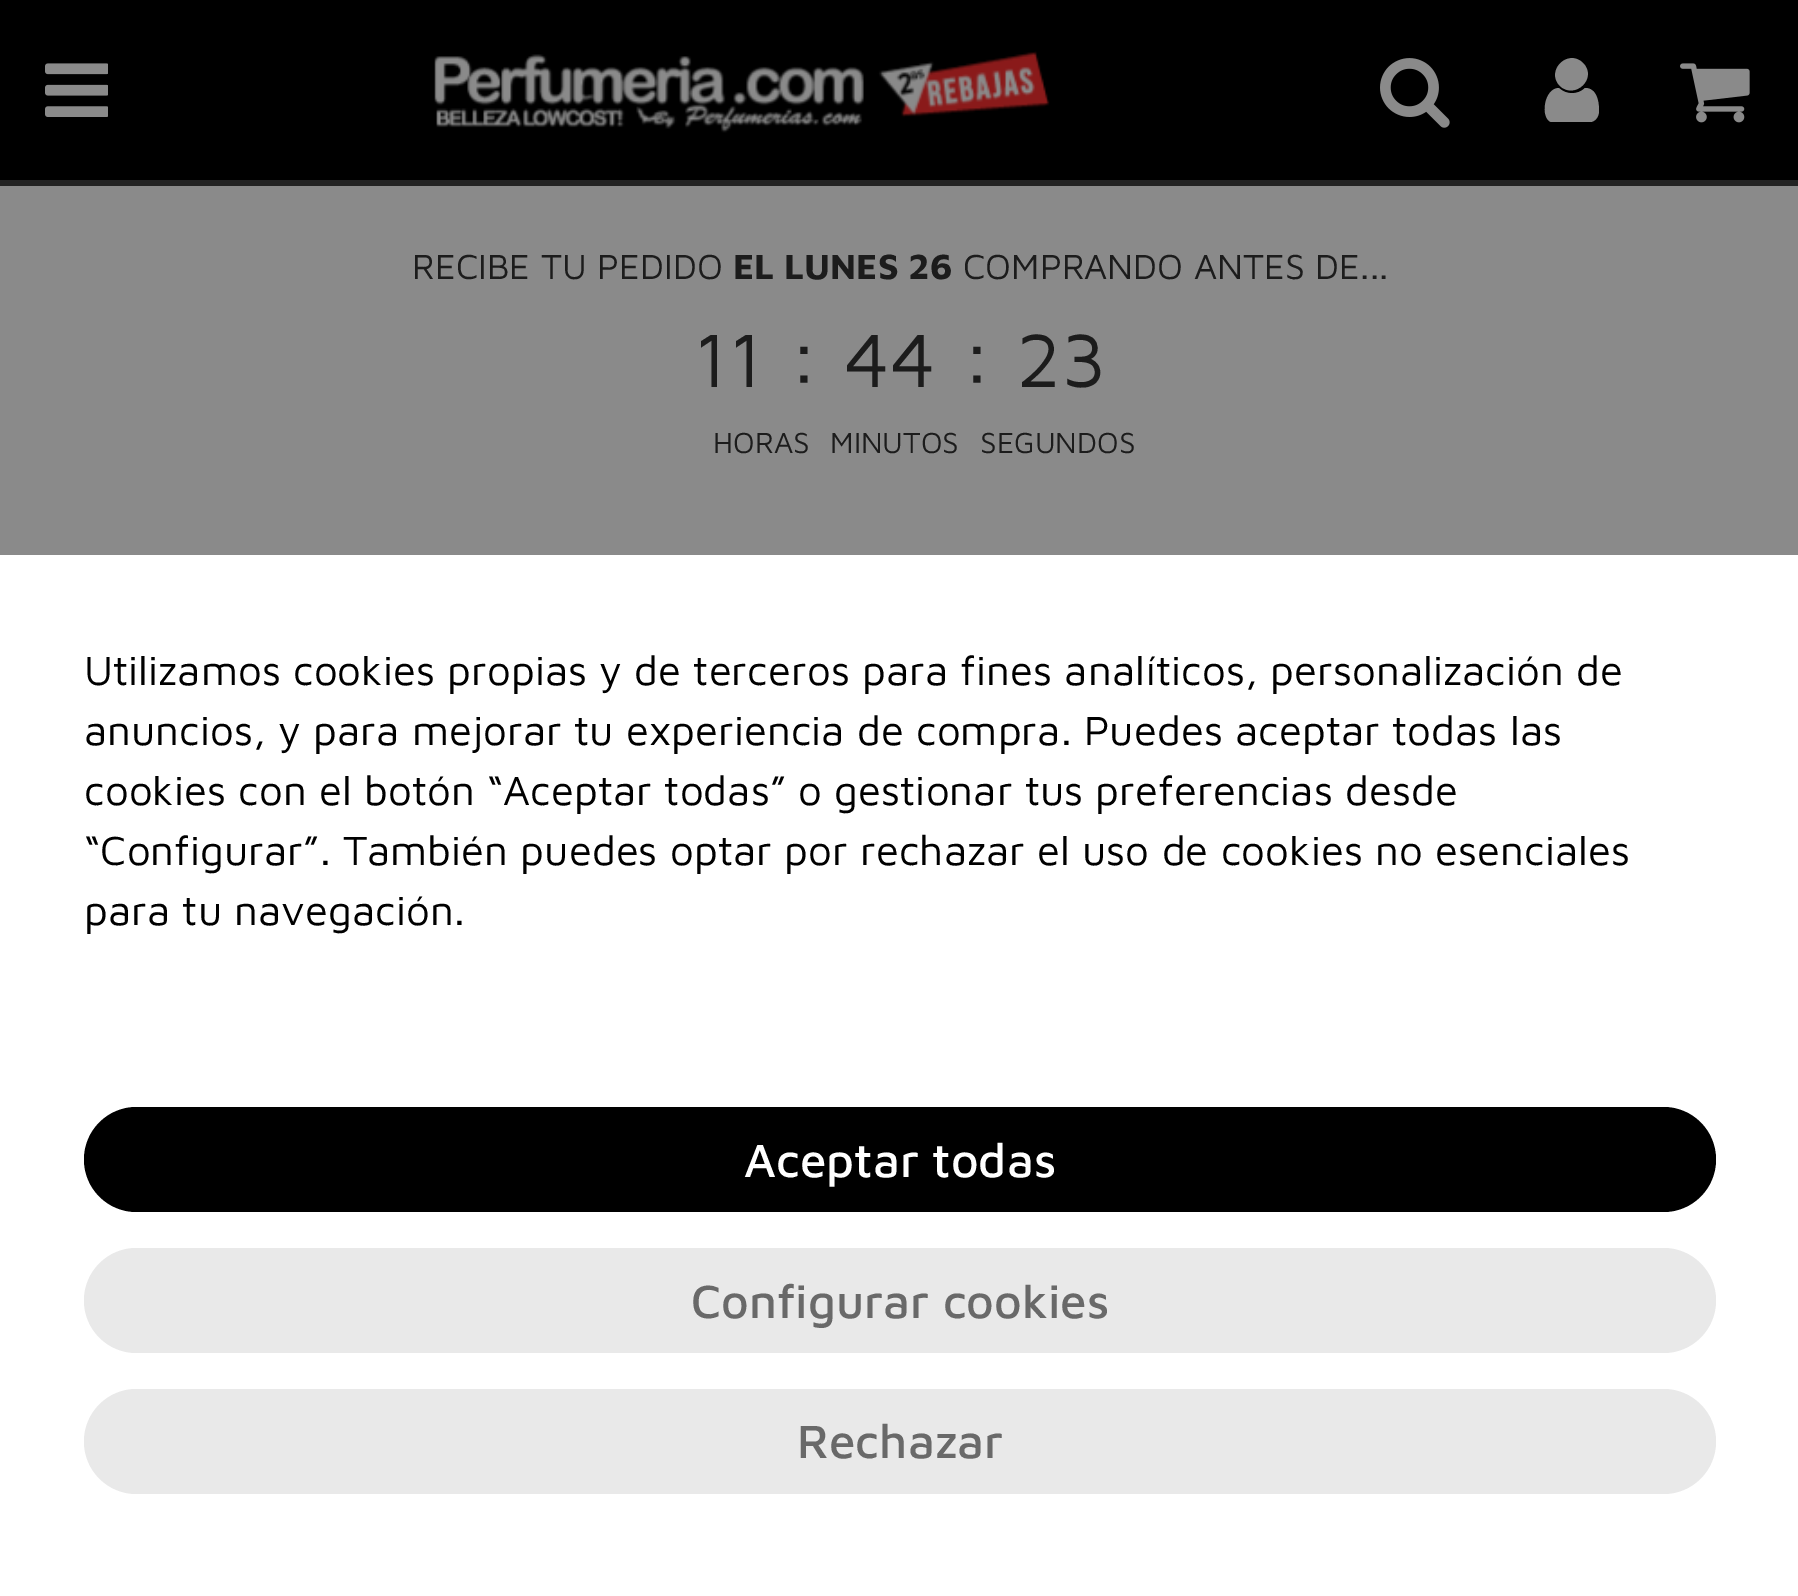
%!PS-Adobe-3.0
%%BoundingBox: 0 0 1798 1596
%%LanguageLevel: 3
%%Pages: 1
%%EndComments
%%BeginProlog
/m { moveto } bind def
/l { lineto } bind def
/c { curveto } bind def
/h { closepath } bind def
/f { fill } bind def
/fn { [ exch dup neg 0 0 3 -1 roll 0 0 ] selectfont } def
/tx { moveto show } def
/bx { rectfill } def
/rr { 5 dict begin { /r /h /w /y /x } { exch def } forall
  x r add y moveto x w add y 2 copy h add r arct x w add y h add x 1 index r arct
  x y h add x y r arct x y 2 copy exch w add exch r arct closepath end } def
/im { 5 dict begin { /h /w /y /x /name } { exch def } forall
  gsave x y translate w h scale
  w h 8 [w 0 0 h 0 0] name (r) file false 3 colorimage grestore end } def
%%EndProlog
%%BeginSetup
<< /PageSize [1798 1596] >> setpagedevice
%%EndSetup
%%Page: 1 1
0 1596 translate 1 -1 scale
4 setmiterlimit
0.541 setgray
0 0 1798 1596 bx
0.137 setgray
-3 0 m -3 186 l 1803 186 l 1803 0 l 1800 0 l 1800 180 l 0 180 l 0 0 l h f
0 setgray
0 0 1798 180 bx
(image0.raw) 45 63 63 54 im
(image1.raw) 434 51 616 82 im
(image2.raw) 1380 58 70 70 im
0.541 setgray
1599 111 m 1599 116 1596 121 1591 122 c 1560 122 l 1551 122 l 1540 118 1544 88 1559 88 c 1566 95 1578 95 1585 88 c 1597 88 1599 102 1599 111 c h 1583 63 m 1598 78 1575 100 1560 86 c 1545 71 1568 48 1583 63 c h f
(image3.raw) 1680 63 70 60 im
/MavenPro-Regular 36 fn
0.11 setgray
(RECIBE TU PEDIDO) 412 279 tx
/MavenPro-Bold 36 fn
(EL LUNES 26) 733 279 tx
/MavenPro-Regular 36 fn
(COMPRANDO ANTES DE...) 963 279 tx
/MavenPro-Regular 78 fn
(11) 693 387 tx
/MavenPro-Regular 90 fn
(:) 786 387 tx
/MavenPro-Regular 78 fn
(44) 844 387 tx
/MavenPro-Regular 90 fn
(:) 959 387 tx
/MavenPro-Regular 78 fn
(23) 1016 387 tx
/MavenPro-Regular 30 fn
(HORAS) 713 453 tx
(MINUTOS) 830 453 tx
(SEGUNDOS) 980 453 tx
1 setgray
0 555 1798 1041 bx
/MavenPro-Regular 42 fn
0 setgray
(Utilizamos cookies propias y de terceros para fines analíticos, personalización de) 84 685 tx
(anuncios, y para mejorar tu experiencia de compra. Puedes aceptar todas las) 84 745 tx
(cookies con el botón “Aceptar todas” o gestionar tus preferencias desde) 84 805 tx
(“Configurar”. También puedes optar por rechazar el uso de cookies no esenciales) 84 865 tx
(para tu navegación.) 84 925 tx
84 1107 1632 105 52.5 rr f
/MavenPro-Medium 48 fn
1 setgray
(Aceptar todas) 744 1177 tx
0.914 setgray
84 1248 1632 105 52.5 rr f
0.412 setgray
(Configurar cookies) 691 1318 tx
0.914 setgray
84 1389 1632 105 52.5 rr f
0.412 setgray
(Rechazar) 797 1458 tx
showpage
%%EOF
